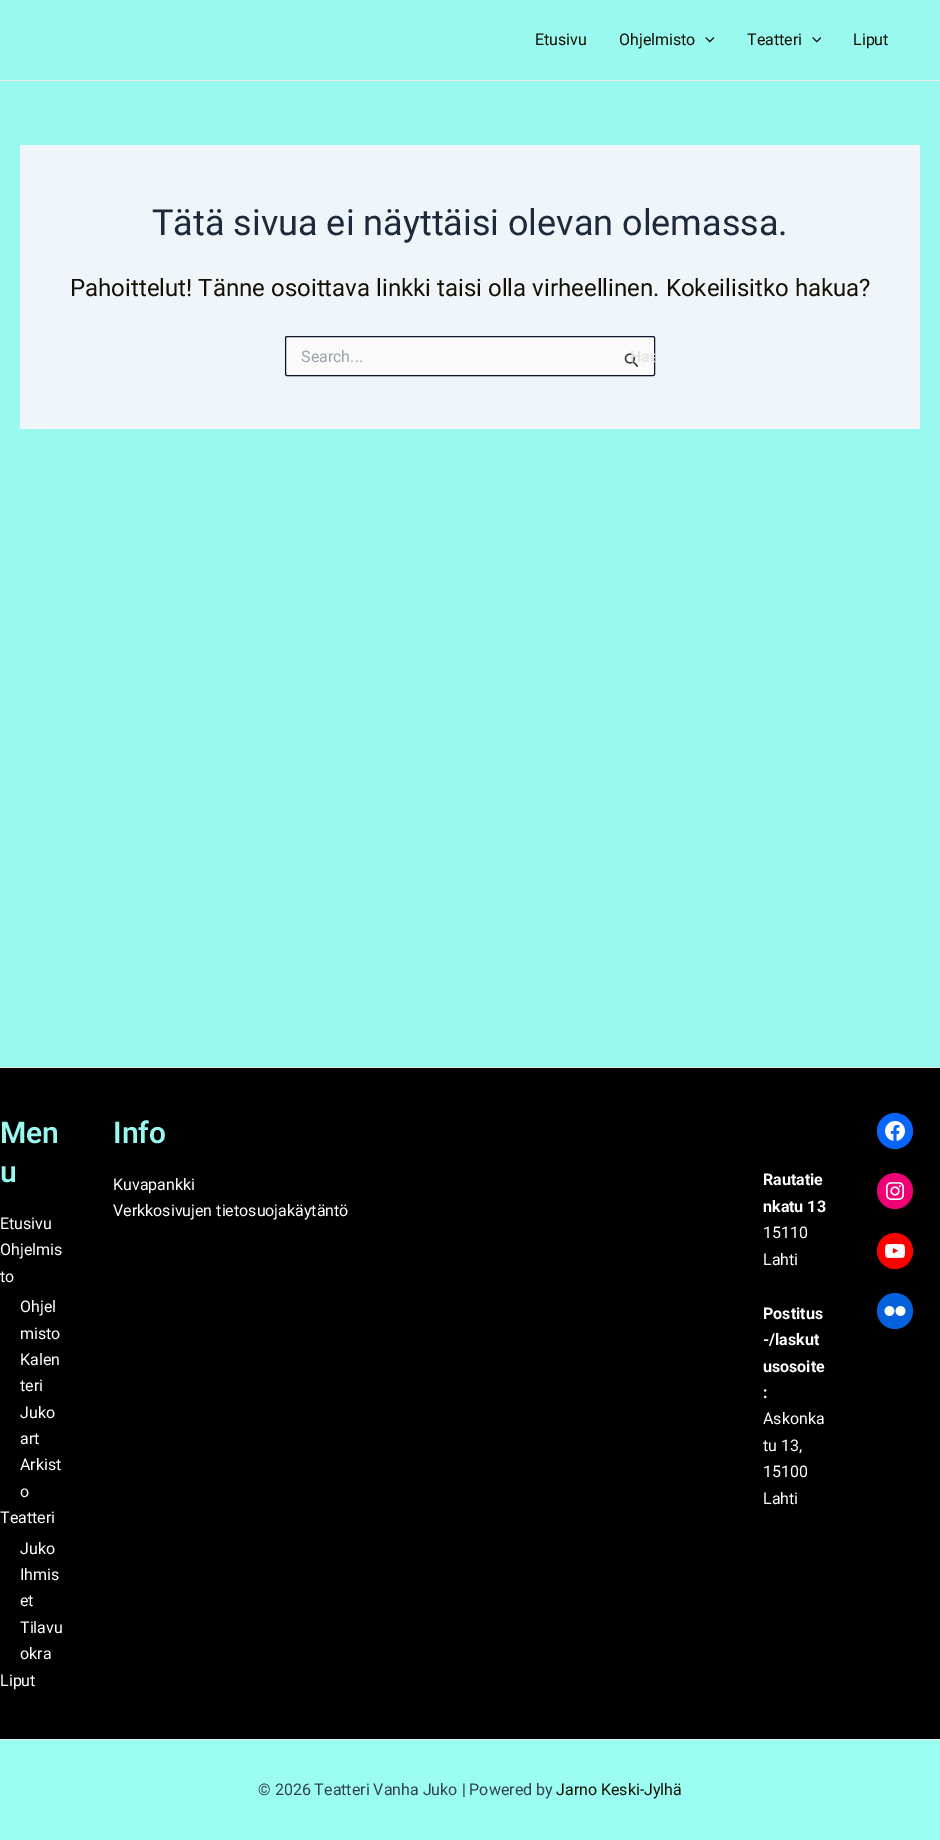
%!PS-Adobe-3.0
%%BoundingBox: 0 0 940 1840
%%LanguageLevel: 3
%%Pages: 1
%%EndComments
%%BeginProlog
/f { fill } bind def
/S { stroke } bind def
/q { gsave } bind def
/Q { grestore } bind def
/fn { [ exch dup neg 0 0 3 -1 roll 0 0 ] selectfont } def
/tx { moveto show } def
/bx { rectfill } def
/al { dup .setfillconstantalpha .setstrokeconstantalpha } def
/ci { newpath 0 360 arc closepath } def
/rr { 5 dict begin { /r /h /w /y /x } { exch def } forall
  x r add y moveto x w add y 2 copy h add r arct x w add y h add x 1 index r arct
  x y h add x y r arct x y 2 copy exch w add exch r arct closepath end } def
/sh { 12 dict begin { /a /b /q /h /w /y /x } { exch def } forall gsave /was 0 def
  9 -2 -9 { dup b mul 4 div /e exch def 1 sub .425 mul 2.718 exch exp 1 add a .99 .min exch div /now exch def
    1 1 now sub 1 was sub div sub al /was now def
    w h .min e 2 mul add 0 gt { x e sub y e sub w e 2 mul add h e 2 mul add
      q e add b .6 mul add w h .min 2 div e add .min 0 .max rr fill } if } for grestore end } def
/im { 5 dict begin { /h /w /y /x /name } { exch def } forall
  gsave x y translate w h scale
  w h 8 [w 0 0 h 0 0] name (r) file false 3 colorimage grestore end } def
%%EndProlog
%%BeginSetup
<< /PageSize [940 1840] /PageUsesTransparency true >> setpagedevice
%%EndSetup
%%Page: 1 1
0 .pushpdf14devicefilter
0 1840 translate 1 -1 scale
4 setmiterlimit
0.6 0.976 0.937 setrgbcolor
0 0 940 1840 bx
0.918 setgray
0 80 940 1 bx
/Roboto-Regular 16 fn
0.078 0.063 0.016 setrgbcolor
(Etusivu) 535 45 tx
(Ohjelmisto) 619 45 tx
(image0.raw) 705 37 10 6 im
(Teatteri) 747 45 tx
(image1.raw) 812 37 9 6 im
(Liput) 853 45 tx
0.941 0.961 0.98 setrgbcolor
20 145 900 284 bx
/Roboto-Regular 36 fn
0.118 0.161 0.231 setrgbcolor
(Tätä sivua ei näyttäisi olevan olemassa.) 152 235 tx
/Roboto-Regular 24 fn
0.078 0.063 0.016 setrgbcolor
(Pahoittelut! Tänne osoittava linkki taisi olla virheellinen. Kokeilisitko hakua?) 70 296 tx
0 setgray
285 337 370 40 2 1 0.05 sh
0.98 setgray
285.5 336.5 369 39 1.5 rr q f Q
0.059 0.09 0.165 setrgbcolor
S
/Roboto-Regular 16 fn
0.612 0.639 0.686 setrgbcolor
(Search...) 301 362 tx
(image2.raw) 624 353 14 15 im
q
610 336 45 42 2 rr clip newpath
/Roboto-Medium 16 fn
0.89 0.89 0.894 setrgbcolor
(Hae) 630 362 tx
Q
0 setgray
0 1068 940 671 bx
0.902 setgray
0 1067 940 1 bx
/Roboto-SemiBold 30 fn
0.6 0.976 0.937 setrgbcolor
(Men) 0 1143 tx
(u) 0 1182 tx
/Roboto-Regular 16 fn
1 setgray
(Etusivu) 0 1229 tx
(Ohjelmis) 0 1255 tx
(to) 0 1282 tx
(Ohjel) 20 1312 tx
(misto) 20 1339 tx
(Kalen) 20 1365 tx
(teri) 20 1391 tx
(Juko) 20 1418 tx
(art) 20 1444 tx
(Arkist) 20 1470 tx
(o) 20 1497 tx
(Teatteri) 0 1523 tx
(Juko) 20 1554 tx
(Ihmis) 20 1580 tx
(et) 20 1606 tx
(Tilavu) 20 1633 tx
(okra) 20 1659 tx
(Liput) 0 1686 tx
/Roboto-SemiBold 30 fn
0.6 0.976 0.937 setrgbcolor
(Info) 113 1143 tx
/Roboto-Regular 16 fn
1 setgray
(Kuvapankki) 113 1190 tx
(Verkkosivujen tietosuojakäytäntö) 113 1216 tx
/Roboto-Bold 16 fn
(Rautatie) 763 1185 tx
(nkatu 13) 763 1212 tx
/Roboto-Regular 16 fn
(15110) 763 1238 tx
(Lahti) 763 1265 tx
/Roboto-Bold 16 fn
(Postitus) 763 1319 tx
(-/laskut) 763 1345 tx
(usosoite) 763 1372 tx
(:) 763 1398 tx
/Roboto-Regular 16 fn
(Askonka) 763 1424 tx
(tu 13,) 763 1451 tx
(15100) 763 1477 tx
(Lahti) 763 1504 tx
0.031 0.4 1 setrgbcolor
895 1131 18 ci f
(image3.raw) 885 1121 20 20 im
0.941 0 0.459 setrgbcolor
895 1191 18 ci f
(image4.raw) 886 1182 18 18 im
1 0 0 setrgbcolor
895 1251 18 ci f
(image5.raw) 885 1244 20 14 im
0.016 0.38 0.867 setrgbcolor
895 1311 18 ci f
(image6.raw) 884 1306 22 10 im
0.608 0.988 0.949 setrgbcolor
0 1740 940 100 bx
0.918 setgray
0 1739 940 1 bx
0.2 0.255 0.333 setrgbcolor
(© 2026 Teatteri Vanha Juko | Powered by) 258 1795 tx
0.078 0.063 0.016 setrgbcolor
(Jarno Keski-Jylhä) 556 1795 tx
.poppdf14devicefilter showpage
%%EOF
